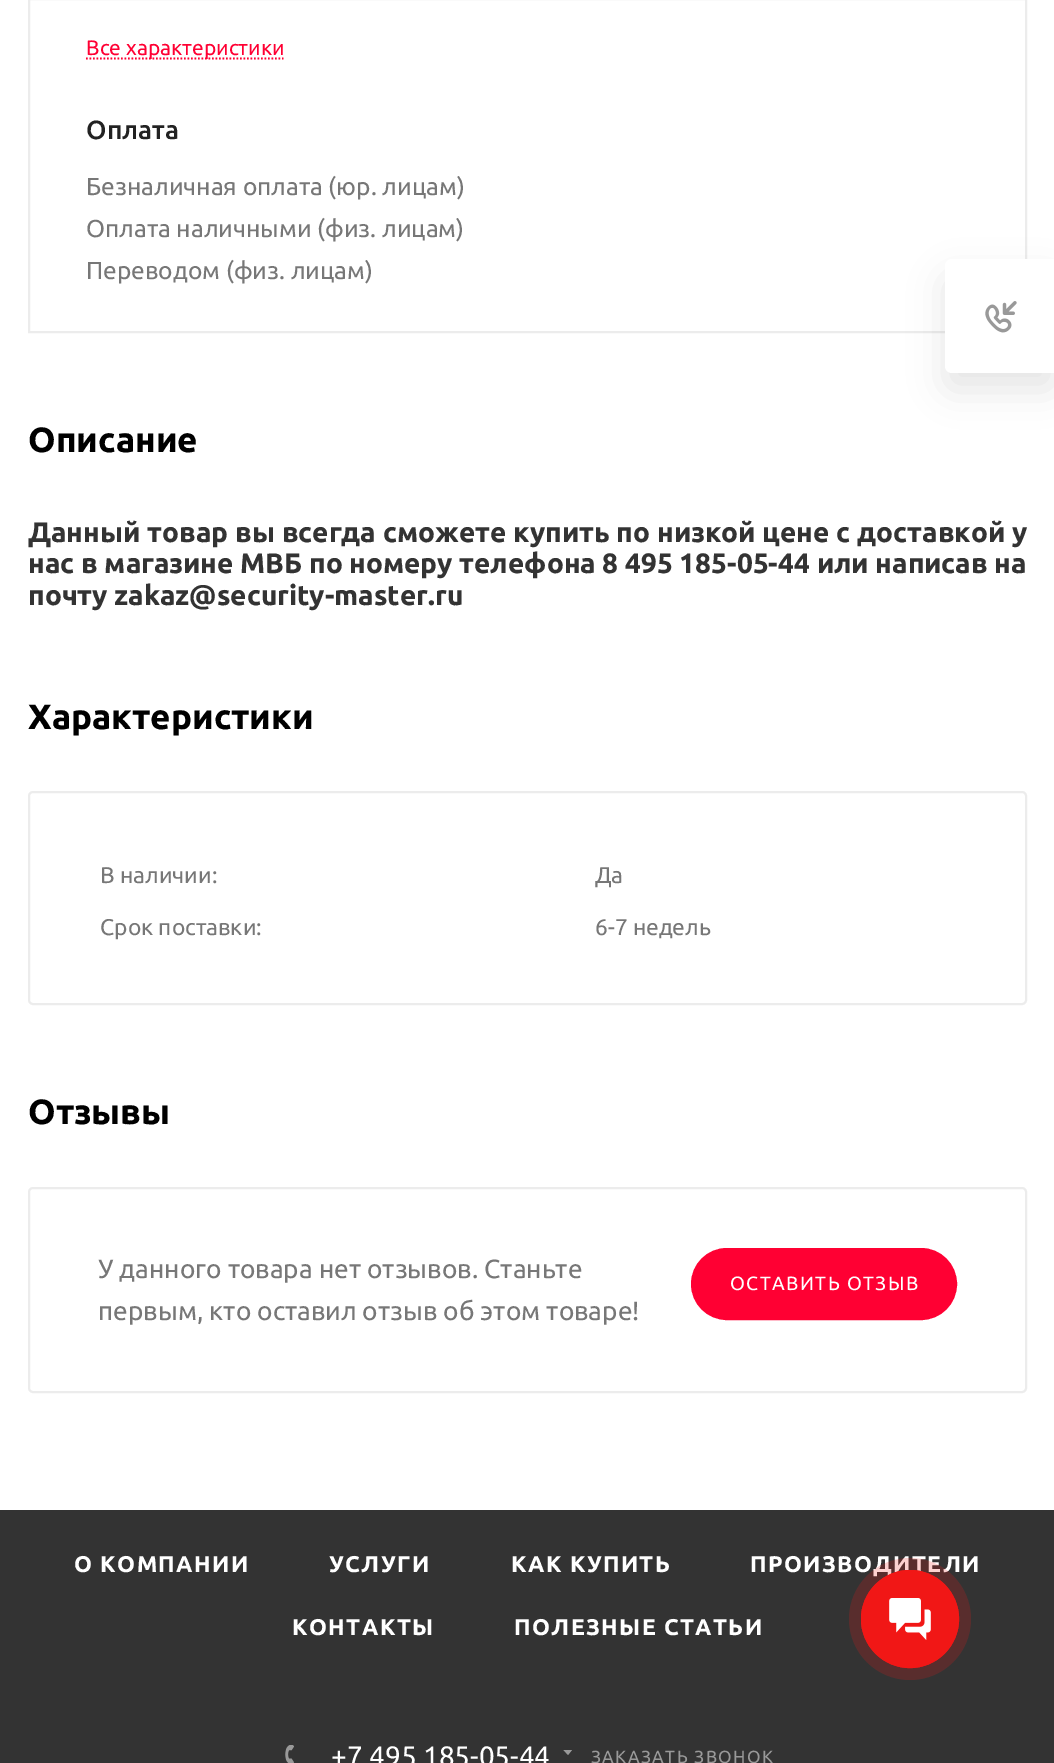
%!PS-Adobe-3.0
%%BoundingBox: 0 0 1054 1763
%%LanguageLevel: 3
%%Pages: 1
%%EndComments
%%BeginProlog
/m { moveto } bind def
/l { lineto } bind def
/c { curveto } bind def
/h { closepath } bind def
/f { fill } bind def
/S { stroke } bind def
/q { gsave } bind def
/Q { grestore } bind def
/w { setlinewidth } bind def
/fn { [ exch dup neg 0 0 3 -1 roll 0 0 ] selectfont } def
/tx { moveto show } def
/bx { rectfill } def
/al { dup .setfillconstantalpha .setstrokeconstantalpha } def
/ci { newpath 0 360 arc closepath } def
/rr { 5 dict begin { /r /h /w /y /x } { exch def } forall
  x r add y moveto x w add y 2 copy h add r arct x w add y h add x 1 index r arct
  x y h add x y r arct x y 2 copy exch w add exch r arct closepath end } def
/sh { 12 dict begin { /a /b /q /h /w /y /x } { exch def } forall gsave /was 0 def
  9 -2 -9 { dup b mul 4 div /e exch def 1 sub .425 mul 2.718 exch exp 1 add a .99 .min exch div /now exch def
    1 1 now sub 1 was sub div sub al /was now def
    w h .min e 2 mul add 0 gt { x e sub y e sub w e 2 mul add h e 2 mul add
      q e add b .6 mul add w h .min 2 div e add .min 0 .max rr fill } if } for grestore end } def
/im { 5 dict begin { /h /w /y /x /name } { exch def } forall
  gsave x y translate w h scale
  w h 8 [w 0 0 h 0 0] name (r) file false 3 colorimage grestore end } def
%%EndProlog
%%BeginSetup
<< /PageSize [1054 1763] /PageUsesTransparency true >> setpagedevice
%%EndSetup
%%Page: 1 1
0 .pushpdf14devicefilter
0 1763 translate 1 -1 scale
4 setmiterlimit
1 setgray
0 0 1054 1763 bx
0.925 setgray
2 w
29 -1 997 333 rectstroke
1 0 0.2 setrgbcolor
1.8 w
[1.75 1.75] 0 setdash
86 58.5 m 283.5 58.5 l S
/Ubuntu-Regular 21 fn
(Все характеристики) 86 55 tx
/Ubuntu-Medium 26.25 fn
0.133 setgray
(Оплата) 86 139 tx
/Ubuntu-Regular 24.5 fn
0.467 setgray
(Безналичная оплата \(юр. лицам\)) 86 195 tx
(Оплата наличными \(физ. лицам\)) 86 237 tx
(Переводом \(физ. лицам\)) 86 279 tx
/Ubuntu-Bold 35 fn
0 setgray
(Описание) 28 452 tx
/Ubuntu-Bold 28 fn
0.2 setgray
28 542 m 0.25 0 32 (Данный товар вы всегда сможете купить по низкой цене с доставкой у) widthshow
(нас в магазине МВБ по номеру телефона 8 495 185-05-44 или написав на) 28 573 tx
(почту zakaz@security-master.ru) 28 605 tx
/Ubuntu-Bold 35 fn
0 setgray
(Характеристики) 28 729 tx
0.925 setgray
2 w
[] 0 setdash
29 792 997 212 4 rr S
/Ubuntu-Regular 22.75 fn
0.467 setgray
(В наличии:) 100 883 tx
(Да) 595 883 tx
(Срок поставки:) 100 935 tx
(6-7 недель) 595 935 tx
/Ubuntu-Bold 35 fn
0 setgray
(Отзывы) 28 1124 tx
0.925 setgray
29 1188 997 204 4 rr S
/Ubuntu-Regular 26.25 fn
0.467 setgray
(У данного товара нет отзывов. Станьте) 98 1278 tx
(первым, кто оставил отзыв об этом товаре!) 98 1320 tx
1 0 0.2 setrgbcolor
692 1249 264 70 35 rr q f Q
S
/Ubuntu-Regular 19.25 fn
1 setgray
730 1290 m 1.4 0 (ОСТАВИТЬ ОТЗЫВ) ashow
0 setgray
945 277 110 113 7 17.5 0.1 sh
1 setgray
952 259 m 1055 259 l 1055 373 l 952 373 l 948 373 945 370 945 366 c 945 266 l 945 262 948 259 952 259 c h f
(image0.raw) 985 301 32 32 im
0.2 setgray
0 1510 1054 253 bx
/Ubuntu-Bold 22.75 fn
1 setgray
74 1572 m 1.4 0 (О КОМПАНИИ) ashow
329 1572 m 1.4 0 (УСЛУГИ) ashow
511 1572 m 1.4 0 (КАК КУПИТЬ) ashow
750 1572 m 1.4 0 (ПРОИЗВОДИТЕЛИ) ashow
292 1635 m 1.4 0 (КОНТАКТЫ) ashow
514 1635 m 1.4 0 (ПОЛЕЗНЫЕ СТАТЬИ) ashow
(image1.raw) 285 1745 9 18 im
/Ubuntu-Regular 28 fn
(+7 495 185-05-44) 331 1766 tx
0.6 setgray
563.5 1750 m 572 1750 l 568 1755 l h eofill
/Ubuntu-Regular 17.5 fn
591 1763 m 1.4 0 (ЗАКАЗАТЬ ЗВОНОК) ashow
0.2 al
0.945 0.09 0.086 setrgbcolor
910 1619 61 ci f
1 al
1 w
910 1619 48.5 ci S
910 1619 49 ci f
(image2.raw) 889 1598 42 42 im
.poppdf14devicefilter showpage
%%EOF
